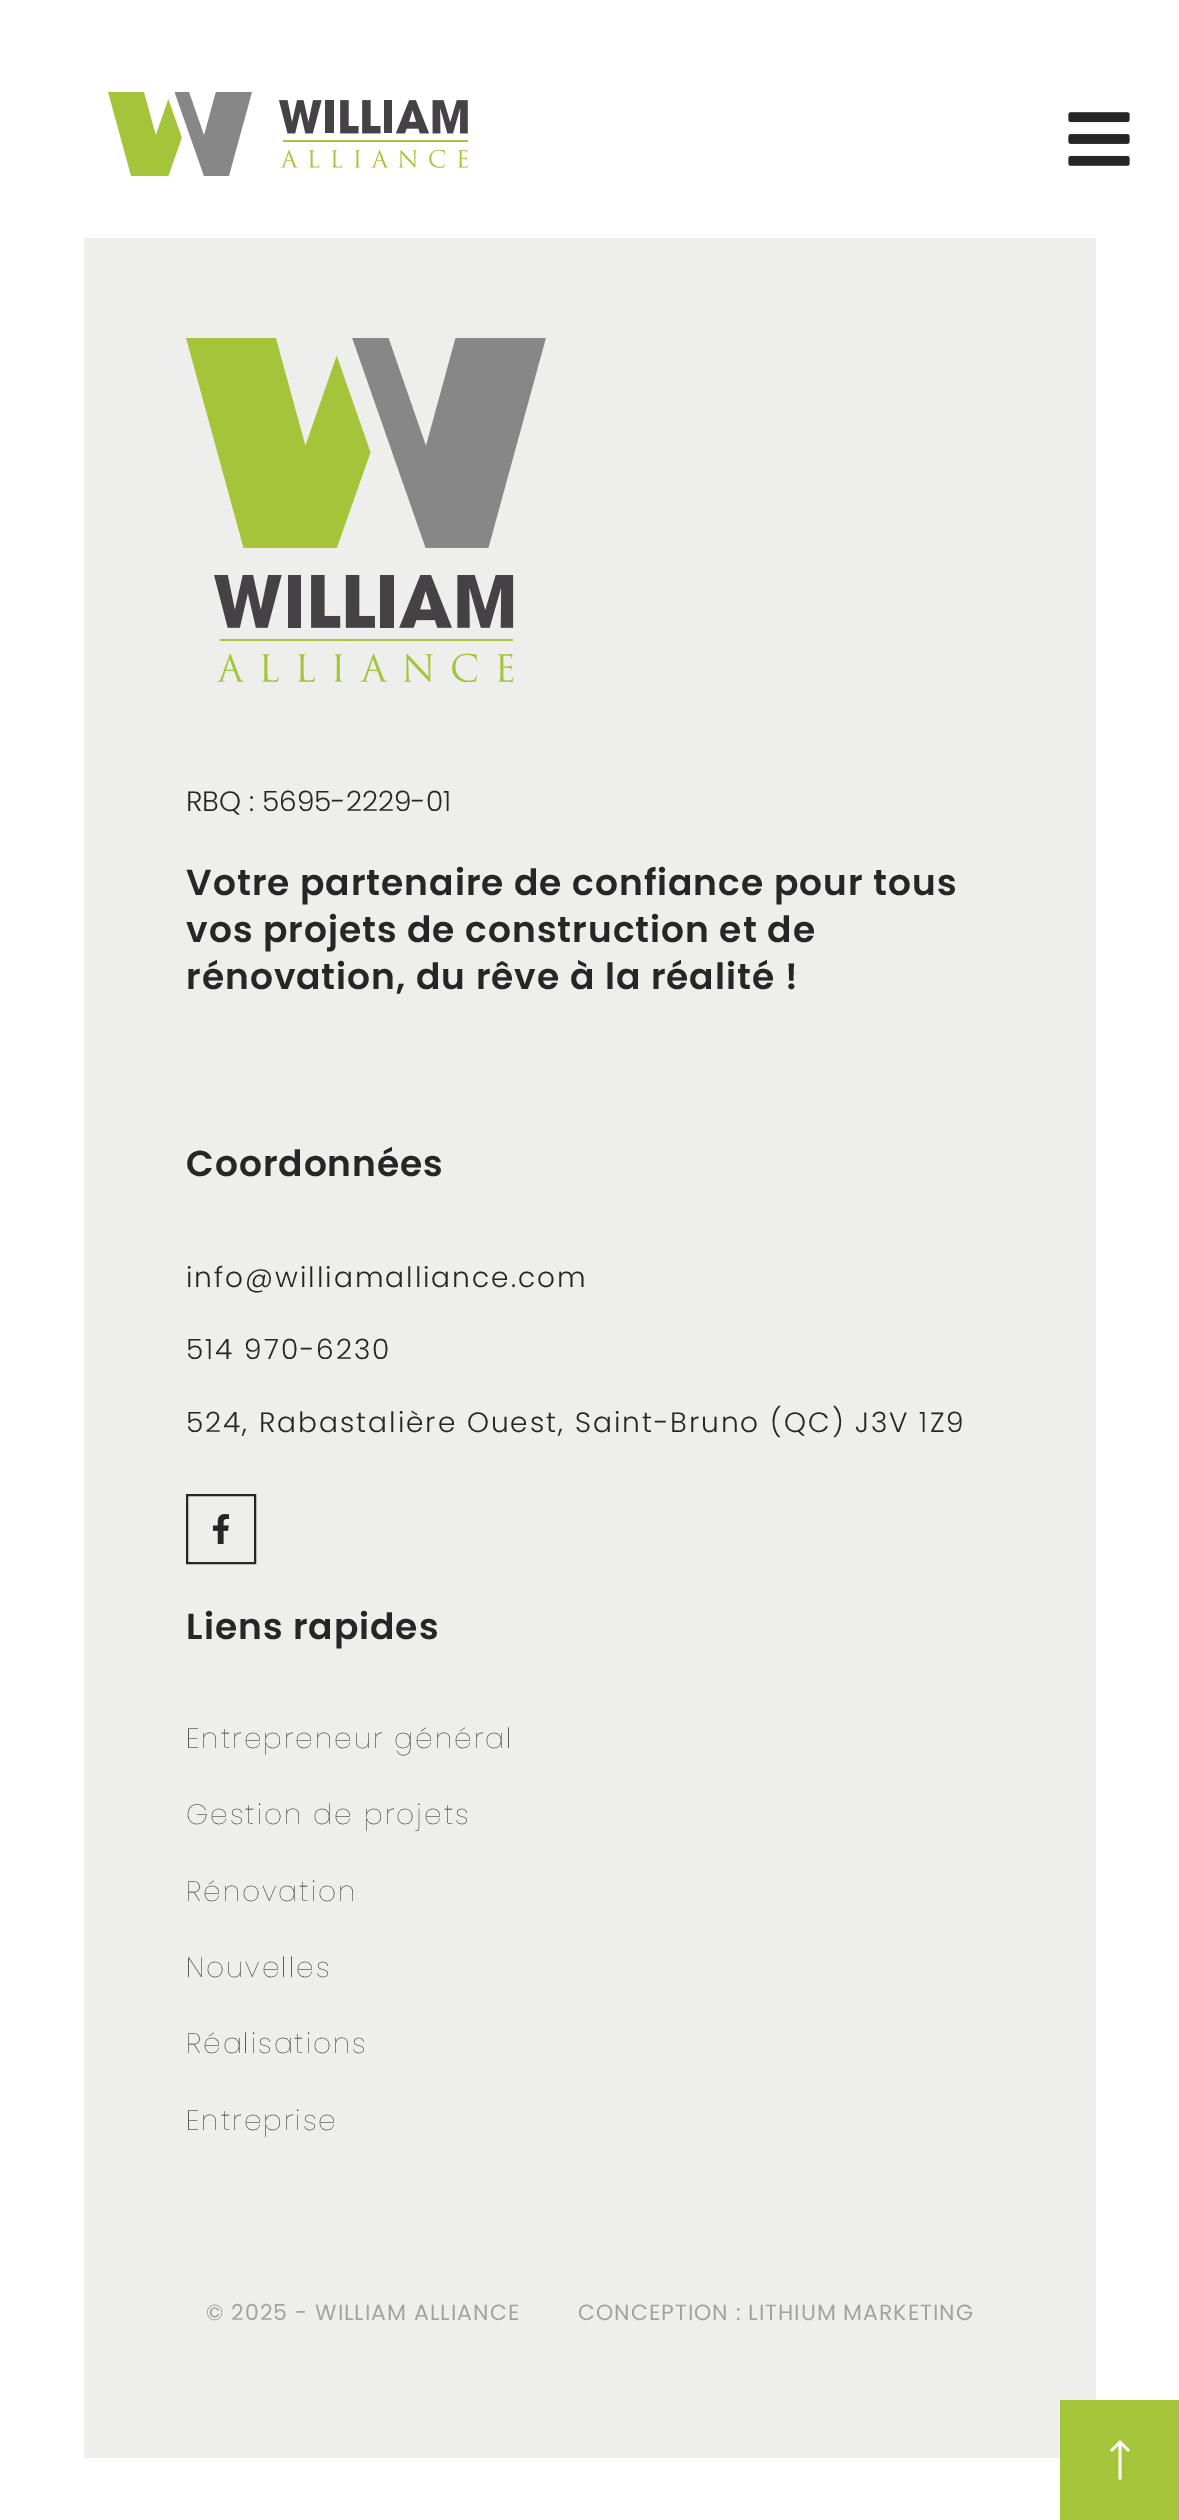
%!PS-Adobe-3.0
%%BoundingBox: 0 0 1179 2520
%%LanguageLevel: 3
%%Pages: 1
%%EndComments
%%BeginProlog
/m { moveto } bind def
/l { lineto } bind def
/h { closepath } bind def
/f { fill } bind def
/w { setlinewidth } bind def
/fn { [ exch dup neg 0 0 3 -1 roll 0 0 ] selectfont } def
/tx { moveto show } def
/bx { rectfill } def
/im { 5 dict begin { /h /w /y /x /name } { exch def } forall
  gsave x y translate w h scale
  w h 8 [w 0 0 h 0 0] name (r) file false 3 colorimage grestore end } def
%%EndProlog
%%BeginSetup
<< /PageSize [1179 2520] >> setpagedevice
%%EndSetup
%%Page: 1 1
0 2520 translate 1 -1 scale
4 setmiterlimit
1 setgray
0 0 1179 2520 bx
(image0.raw) 108 92 360 84 im
(image1.raw) 1068 112 62 54 im
0.933 0.937 0.929 setrgbcolor
84 238 1012 2220 bx
(image2.raw) 186 338 360 344 im
/Poppins-Light 28 fn
0.149 setgray
(RBQ : 5695-2229-01) 186 811 tx
/Poppins-SemiBold 36 fn
186 895 m 1 0 (Votre partenaire de confiance pour tous) ashow
186 942 m 1 0 (vos projets de construction et de) ashow
186 989 m 1 0 (rénovation, du rêve à la réalité !) ashow
186 1176 m 1 0 (Coordonnées) ashow
/Poppins-Light 28 fn
186 1287 m 2 0 (info@williamalliance.com) ashow
186 1359 m 2 0 (514 970-6230) ashow
186 1432 m 2 0 (524, Rabastalière Ouest, Saint-Bruno \(QC\) J3V 1Z9) ashow
2 w
187 1495 68 68 rectstroke
(image3.raw) 212 1514 18 30 im
/Poppins-SemiBold 36 fn
186 1639 m 1 0 (Liens rapides) ashow
/Poppins-ExtraLight 28 fn
186 1748 m 2 0 (Entrepreneur général) ashow
186 1824 m 2 0 (Gestion de projets) ashow
186 1901 m 2 0 (Rénovation) ashow
186 1977 m 2 0 (Nouvelles) ashow
186 2053 m 2 0 (Réalisations) ashow
186 2130 m 2 0 (Entreprise) ashow
/Poppins-Regular 22 fn
0.635 0.635 0.631 setrgbcolor
206 2320 m 1 0 (© 2025 - WILLIAM ALLIANCE) ashow
578 2320 m 1 0 (CONCEPTION : LITHIUM MARKETING) ashow
0.643 0.769 0.224 setrgbcolor
1060 2400 119 120 bx
1 setgray
1110 2450 m 1112 2452 l 1118.5 2445.5 l 1118.5 2479.5 l 1121.5 2479.5 l 1121.5 2445.5 l 1128 2452 l 1130 2450 l 1120 2440 l h f
showpage
%%EOF
